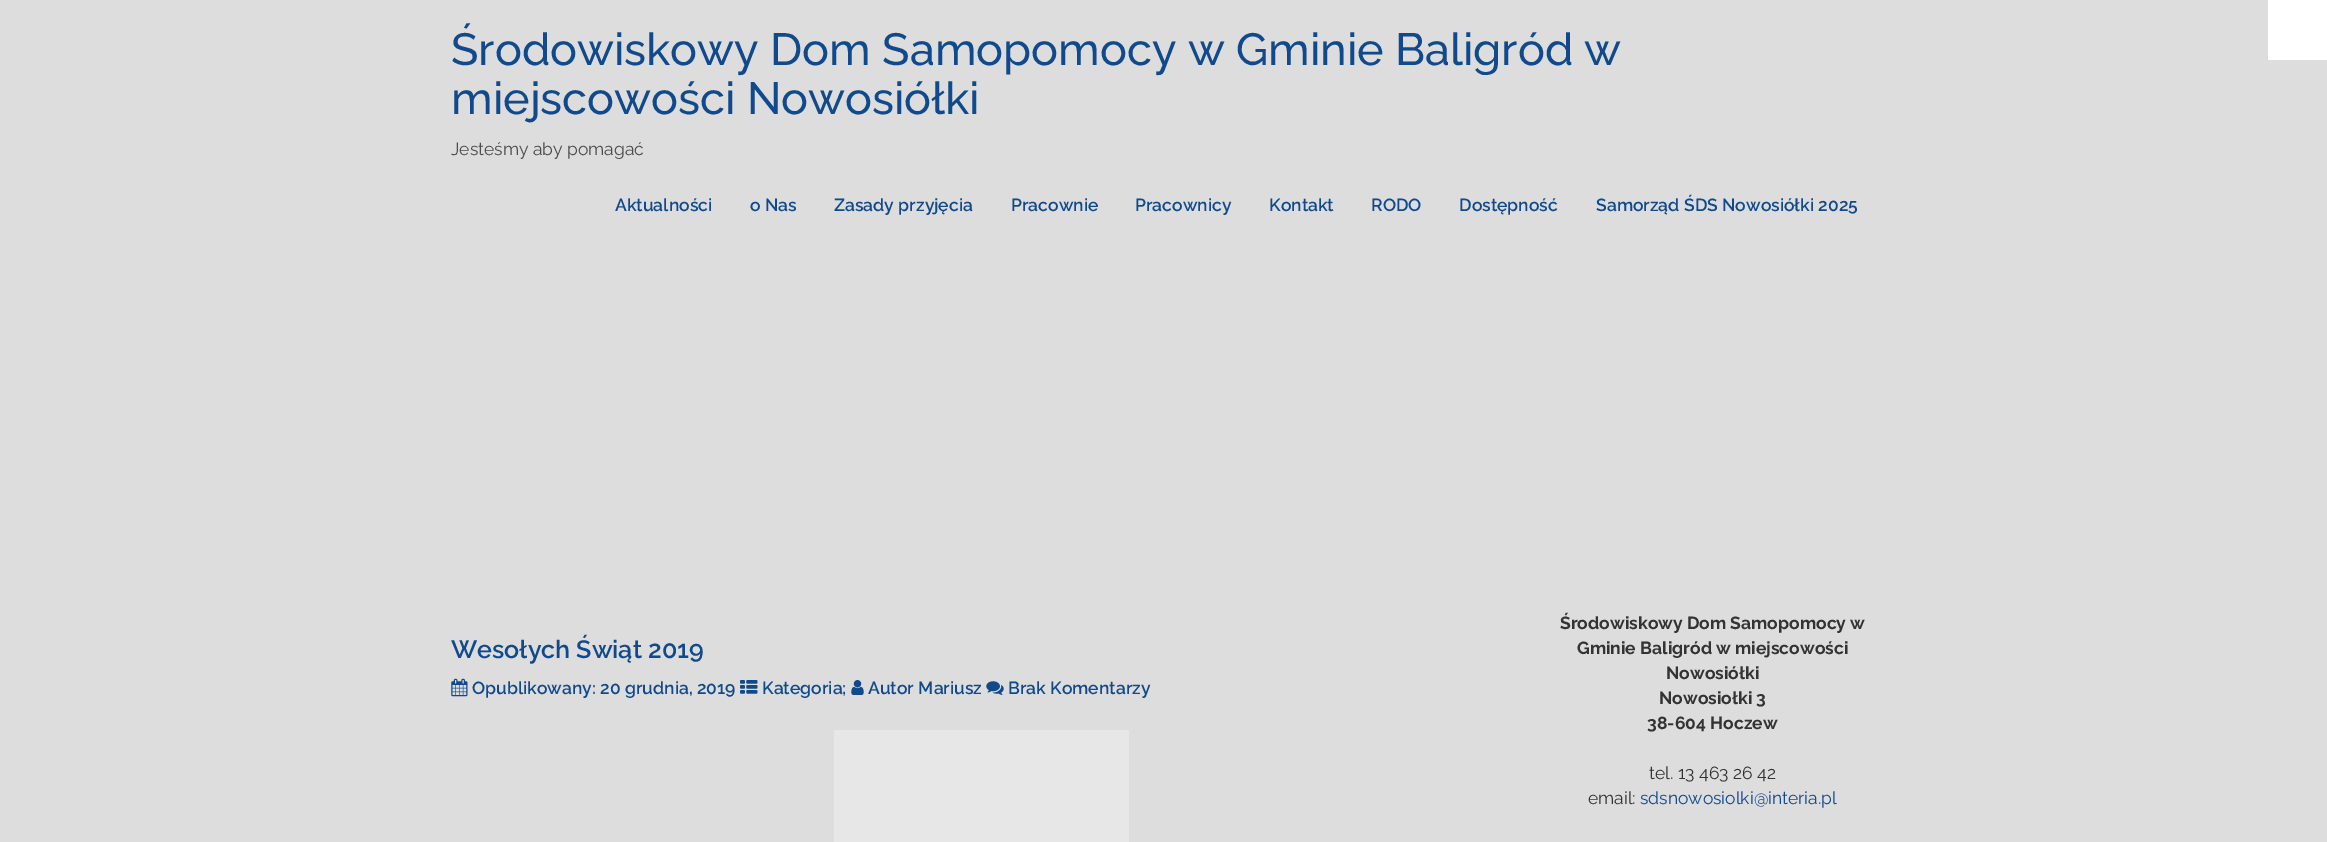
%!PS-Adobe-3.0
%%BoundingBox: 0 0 2327 842
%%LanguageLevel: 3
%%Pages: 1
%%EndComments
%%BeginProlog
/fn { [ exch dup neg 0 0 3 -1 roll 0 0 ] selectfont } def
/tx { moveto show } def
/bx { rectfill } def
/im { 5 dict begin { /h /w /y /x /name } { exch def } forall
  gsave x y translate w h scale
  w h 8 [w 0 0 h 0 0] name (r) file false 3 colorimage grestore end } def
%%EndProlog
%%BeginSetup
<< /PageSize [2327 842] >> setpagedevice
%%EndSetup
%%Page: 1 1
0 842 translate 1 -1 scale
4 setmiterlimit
0.867 setgray
0 0 2327 842 bx
/Raleway-Medium 45 fn
0.063 0.286 0.549 setrgbcolor
(Środowiskowy Dom Samopomocy w Gminie Baligród w) 451 65 tx
(miejscowości Nowosiółki) 451 114 tx
/Raleway-Regular 17.5 fn
0.294 setgray
(Jesteśmy aby pomagać) 451 155 tx
/Raleway-SemiBold 17.5 fn
0.063 0.286 0.549 setrgbcolor
(Aktualności) 615 211 tx
(o Nas) 750 211 tx
(Zasady przyjęcia) 834 211 tx
(Pracownie) 1011 211 tx
(Pracownicy) 1135 211 tx
(Kontakt) 1269 211 tx
(RODO) 1371 211 tx
(Dostępność) 1459 211 tx
(Samorząd ŚDS Nowosiółki 2025) 1596 211 tx
1 setgray
2268 0 59 60 bx
/Raleway-SemiBold 25 fn
0.063 0.286 0.549 setrgbcolor
(Wesołych Świąt 2019) 451 658 tx
(image0.raw) 451 678 17 19 im
/Raleway-SemiBold 17.5 fn
(Opublikowany: 20 grudnia, 2019) 472 694 tx
(image1.raw) 740 680 18 14 im
(Kategoria;) 762 694 tx
(image2.raw) 851 680 13 15 im
(Autor Mariusz) 868 694 tx
(image3.raw) 986 681 18 14 im
(Brak Komentarzy) 1008 694 tx
0.906 setgray
834 730 295 112 bx
/Raleway-Bold 17.5 fn
0.2 setgray
(Środowiskowy Dom Samopomocy w) 1560 629 tx
(Gminie Baligród w miejscowości) 1577 654 tx
(Nowosiółki) 1666 679 tx
(Nowosiołki 3) 1659 704 tx
(38-604 Hoczew) 1647 729 tx
/Raleway-Regular 17.5 fn
(tel. 13 463 26 42) 1649 779 tx
(email:) 1588 804 tx
0.063 0.286 0.549 setrgbcolor
(sdsnowosiolki@interia.pl) 1640 804 tx
showpage
%%EOF
